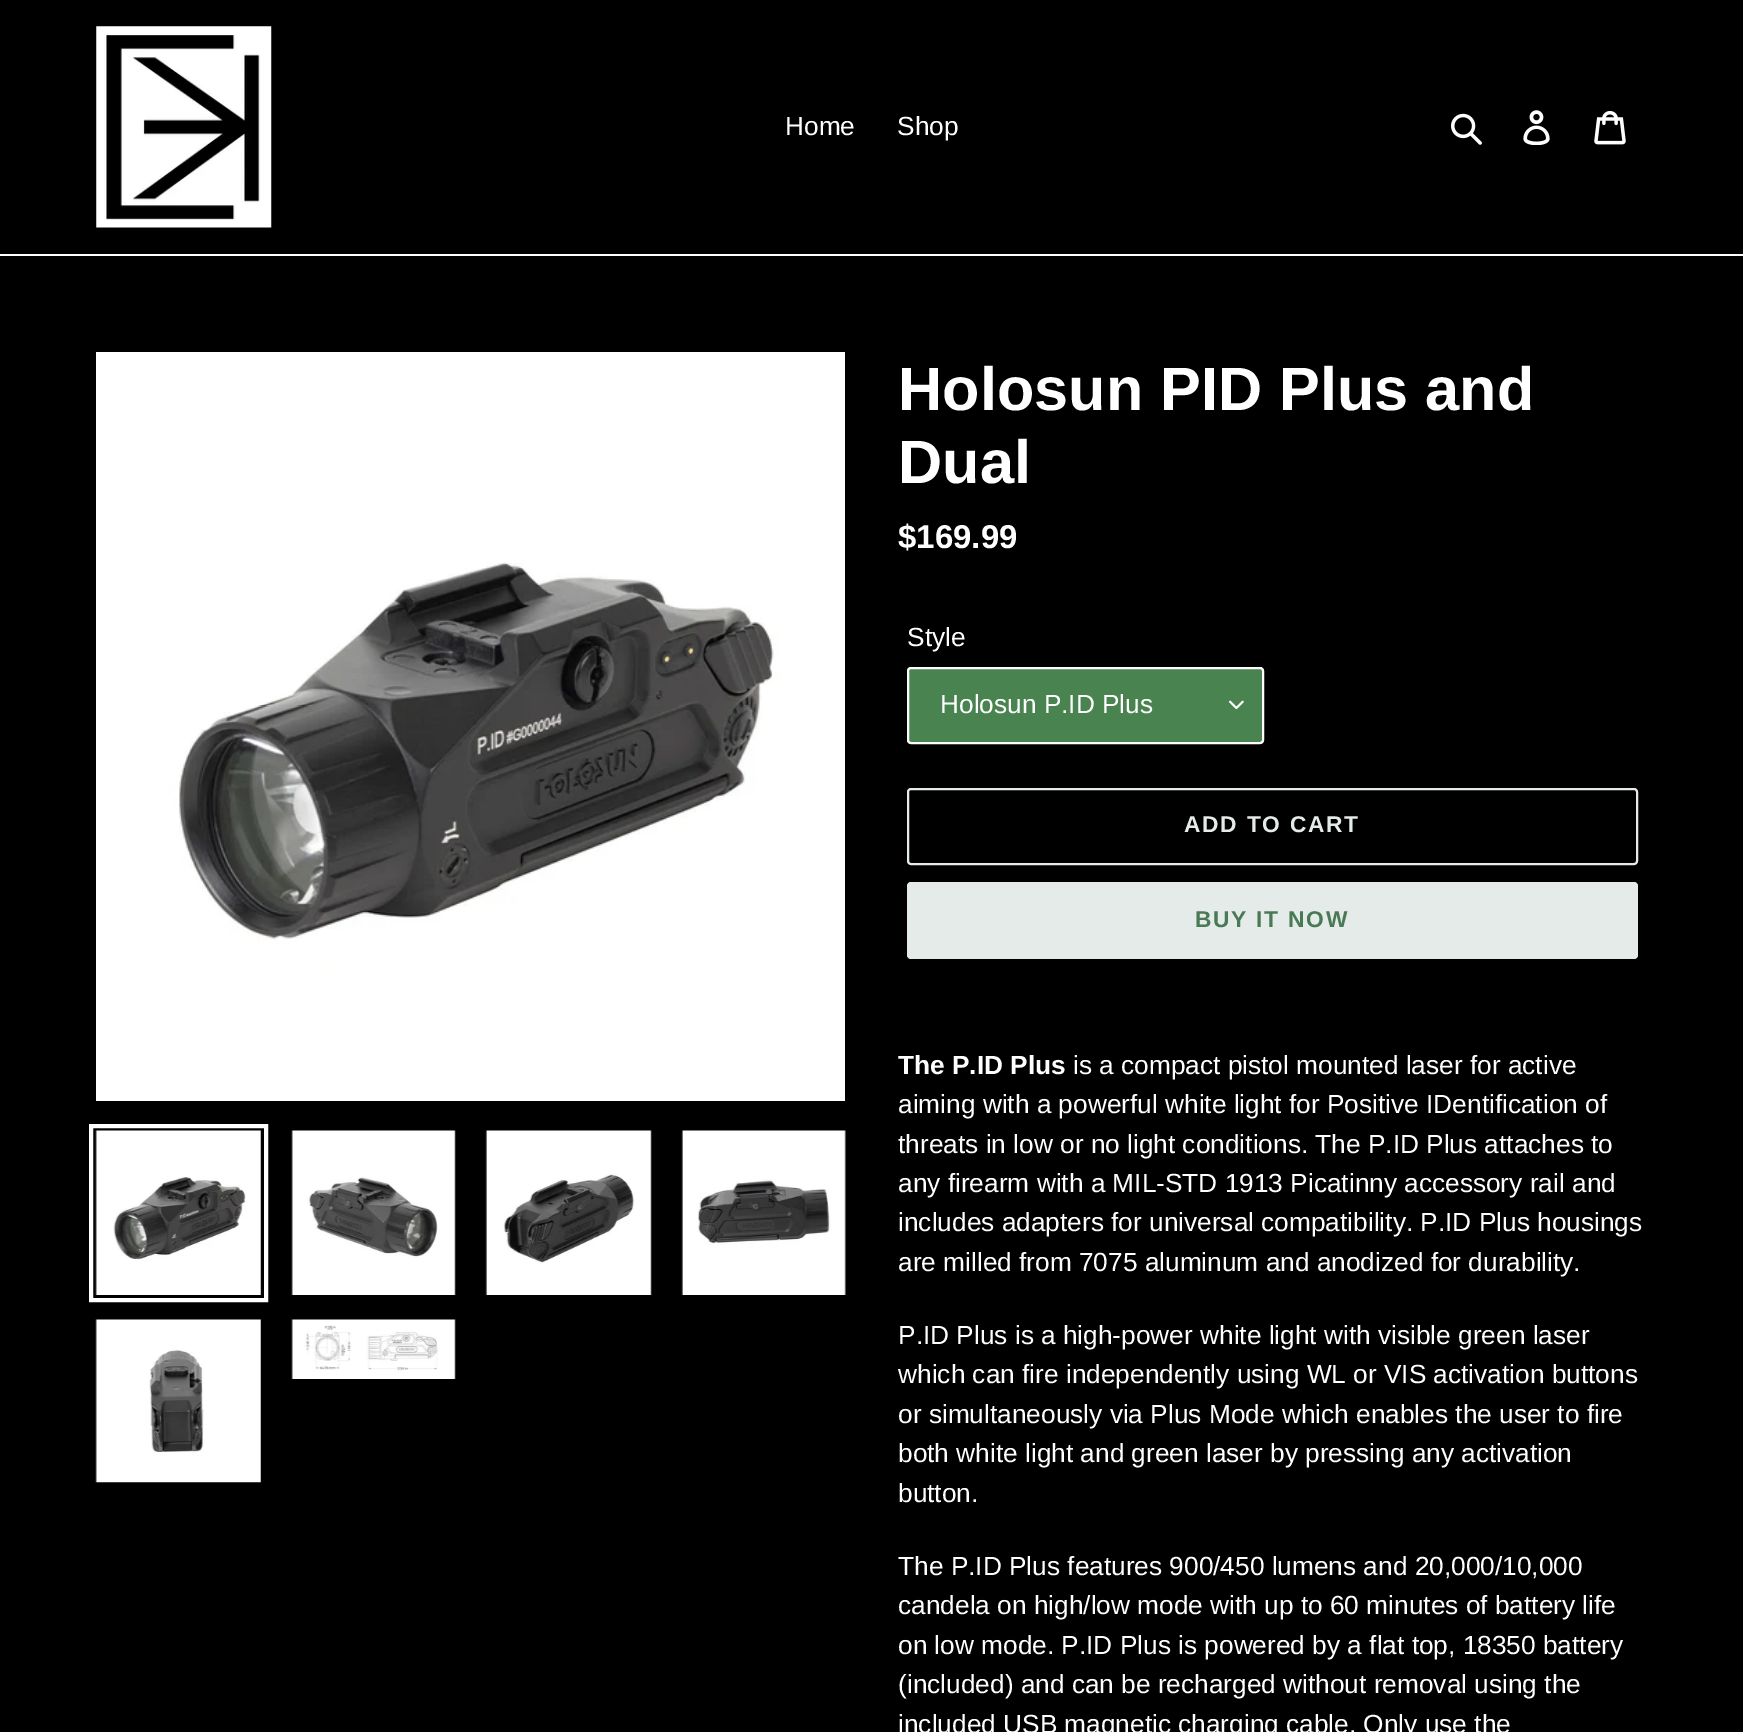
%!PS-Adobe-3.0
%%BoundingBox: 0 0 1743 1732
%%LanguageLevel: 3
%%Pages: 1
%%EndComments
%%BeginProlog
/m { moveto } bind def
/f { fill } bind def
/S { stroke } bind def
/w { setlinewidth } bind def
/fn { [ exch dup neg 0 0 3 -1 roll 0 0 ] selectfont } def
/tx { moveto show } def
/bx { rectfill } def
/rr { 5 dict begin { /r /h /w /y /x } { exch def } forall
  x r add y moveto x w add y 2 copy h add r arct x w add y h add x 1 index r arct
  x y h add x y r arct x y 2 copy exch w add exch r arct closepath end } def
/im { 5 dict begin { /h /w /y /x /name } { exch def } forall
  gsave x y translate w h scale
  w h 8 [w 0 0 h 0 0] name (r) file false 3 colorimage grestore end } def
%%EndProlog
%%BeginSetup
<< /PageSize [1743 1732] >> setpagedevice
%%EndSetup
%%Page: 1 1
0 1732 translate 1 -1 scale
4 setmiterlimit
0 setgray
0 0 1743 1732 bx
1 setgray
0 254 1743 2 bx
(image0.raw) 96 26 176 202 im
/LiberationSans-Regular 26.25 fn
(Home) 785 135 tx
(Shop) 897 135 tx
(image1.raw) 1451 113 31 32 im
(image2.raw) 1523 110 27 35 im
(image3.raw) 1594 111 32 34 im
(image4.raw) 96 352 749 749 im
4 w
91 1126 175 174 rectstroke
(image5.raw) 95 1130 166 165 im
(image6.raw) 291 1130 165 165 im
(image7.raw) 485 1130 167 165 im
(image8.raw) 681 1130 165 165 im
(image9.raw) 95 1319 166 164 im
(image10.raw) 291 1319 165 60 im
/LiberationSans-Bold 61.25 fn
(Holosun PID Plus and) 898 410 tx
(Dual) 898 483 tx
/LiberationSans-Bold 33 fn
($169.99) 898 548 tx
/LiberationSans-Regular 26.25 fn
(Style) 907 646 tx
0.282 0.514 0.314 setrgbcolor
907 667 357 77 4 rr f
(image11.raw) 1229 700 15 10 im
1 setgray
2 w
908 668 355 75 3 rr S
(Holosun P.ID Plus) 940 713 tx
0.898 0.922 0.914 setrgbcolor
908 789 729 75 3 rr S
/LiberationSans-Bold 22.75 fn
1184 832 m 1.75 0 (ADD TO CART) ashow
907 882 731 77 4 rr f
0.286 0.475 0.333 setrgbcolor
1195 927 m 1.75 0 (BUY IT NOW) ashow
/LiberationSans-Bold 26.25 fn
1 setgray
(The P.ID Plus) 898 1074 tx
/LiberationSans-Regular 26.25 fn
(is a compact pistol mounted laser for active) 1073 1074 tx
(aiming with a powerful white light for Positive IDentification of) 898 1113 tx
(threats in low or no light conditions. The P.ID Plus attaches to) 898 1153 tx
(any firearm with a MIL-STD 1913 Picatinny accessory rail and) 898 1192 tx
(includes adapters for universal compatibility. P.ID Plus housings) 898 1231 tx
(are milled from 7075 aluminum and anodized for durability.) 898 1271 tx
(P.ID Plus is a high-power white light with visible green laser) 898 1344 tx
(which can fire independently using WL or VIS activation buttons) 898 1383 tx
(or simultaneously via Plus Mode which enables the user to fire) 898 1423 tx
(both white light and green laser by pressing any activation) 898 1462 tx
(button.) 898 1502 tx
(The P.ID Plus features 900/450 lumens and 20,000/10,000) 898 1575 tx
(candela on high/low mode with up to 60 minutes of battery life) 898 1614 tx
(on low mode. P.ID Plus is powered by a flat top, 18350 battery) 898 1654 tx
(\(included\) and can be recharged without removal using the) 898 1693 tx
(included USB magnetic charging cable. Only use the) 898 1733 tx
showpage
%%EOF
